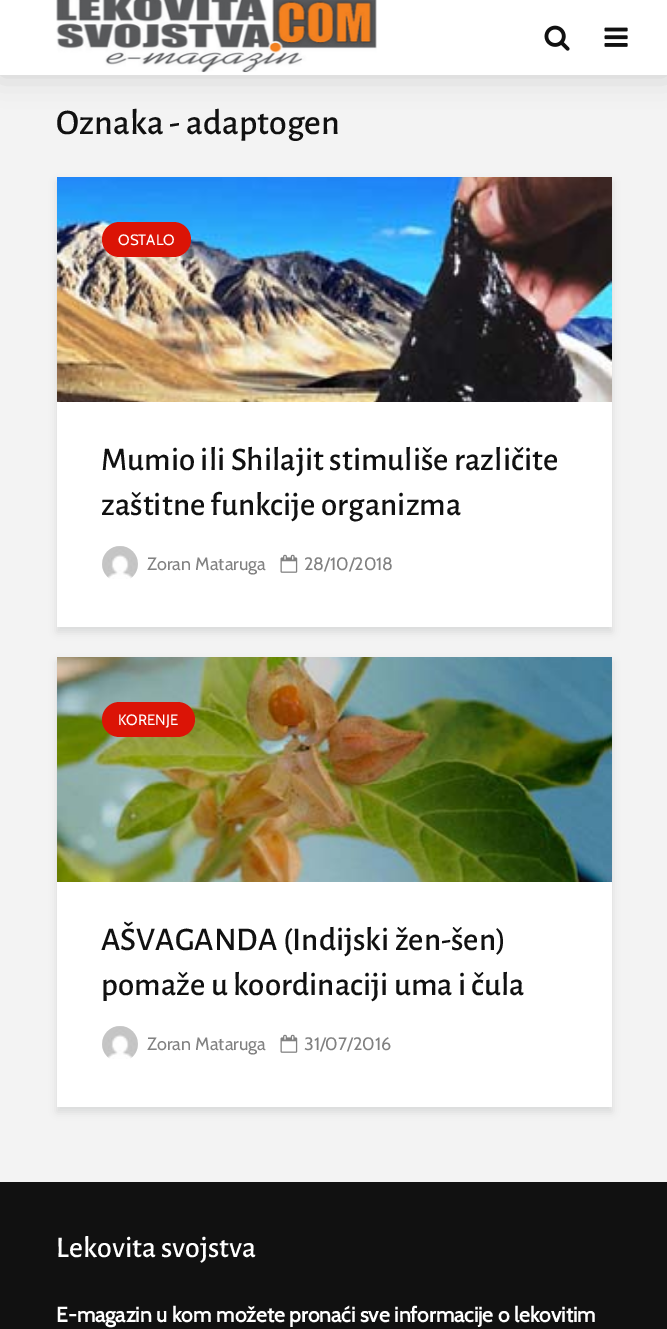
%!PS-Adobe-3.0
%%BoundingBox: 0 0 667 1329
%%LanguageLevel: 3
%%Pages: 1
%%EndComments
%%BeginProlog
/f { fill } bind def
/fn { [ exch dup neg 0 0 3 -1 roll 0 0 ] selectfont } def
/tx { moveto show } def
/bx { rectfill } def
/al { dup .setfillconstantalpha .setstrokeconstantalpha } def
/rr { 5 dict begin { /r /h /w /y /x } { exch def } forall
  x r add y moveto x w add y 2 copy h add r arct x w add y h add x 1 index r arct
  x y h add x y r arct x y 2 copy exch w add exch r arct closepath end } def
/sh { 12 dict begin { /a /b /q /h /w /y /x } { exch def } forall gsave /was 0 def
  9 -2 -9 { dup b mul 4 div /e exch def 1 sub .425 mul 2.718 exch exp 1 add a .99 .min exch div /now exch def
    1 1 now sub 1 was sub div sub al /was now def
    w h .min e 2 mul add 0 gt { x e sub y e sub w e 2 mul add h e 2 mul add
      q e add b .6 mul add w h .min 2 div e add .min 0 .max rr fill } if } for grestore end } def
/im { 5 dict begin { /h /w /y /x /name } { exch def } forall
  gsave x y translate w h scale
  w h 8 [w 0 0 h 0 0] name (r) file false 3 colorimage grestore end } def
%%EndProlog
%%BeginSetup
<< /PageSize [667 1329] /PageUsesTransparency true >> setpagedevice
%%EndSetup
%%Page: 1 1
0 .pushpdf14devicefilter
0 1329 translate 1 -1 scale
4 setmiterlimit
0.953 setgray
0 0 667 1329 bx
0 setgray
0 0 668 75 0 15 0.15 sh
1 setgray
0 0 667 75 bx
(image0.raw) 56 0 321 73 im
(image1.raw) 544 25 26 26 im
(image2.raw) 604 27 24 20 im
/AlegreyaSans-Medium 36 fn
0.067 setgray
(Oznaka - adaptogen) 56 134 tx
0 0.004 0.004 setrgbcolor
57 182 555 450 0 4 0.1 sh
1 setgray
57 402 555 225 bx
(image3.raw) 57 177 555 225 im
0.859 0.078 0.024 setrgbcolor
102 222 89 35 17.5 rr f
/Cabin-Regular 15 fn
1 setgray
(OSTALO) 118 245 tx
/AlegreyaSans-Medium 33 fn
0.067 setgray
(Mumio ili Shilajit stimuliše različite) 101 470 tx
(zaštitne funkcije organizma) 101 515 tx
(image4.raw) 102 546 36 33 im
/Cabin-Regular 18 fn
0.506 setgray
(Zoran Mataruga) 147 570 tx
(image5.raw) 280 554 18 19 im
(28/10/2018) 304 570 tx
0 0.004 0.004 setrgbcolor
57 662 555 450 0 4 0.1 sh
1 setgray
57 882 555 225 bx
(image6.raw) 57 657 555 225 im
0.859 0.078 0.024 setrgbcolor
102 702 93 35 17.5 rr f
/Cabin-Regular 15 fn
1 setgray
(KORENJE) 118 725 tx
/AlegreyaSans-Medium 33 fn
0.067 setgray
(AŠVAGANDA \(Indijski žen-šen\)) 101 950 tx
(pomaže u koordinaciji uma i čula) 101 995 tx
(image4.raw) 102 1026 36 33 im
/Cabin-Regular 18 fn
0.506 setgray
(Zoran Mataruga) 147 1050 tx
(image5.raw) 280 1034 18 19 im
(31/07/2016) 304 1050 tx
0.067 setgray
0 1182 667 147 bx
/AlegreyaSans-Medium 30 fn
1 setgray
(Lekovita svojstva) 56 1257 tx
/Cabin-Bold 21 fn
(E-magazin u kom možete pronaći sve informacije o lekovitim) 56 1322 tx
.poppdf14devicefilter showpage
%%EOF
